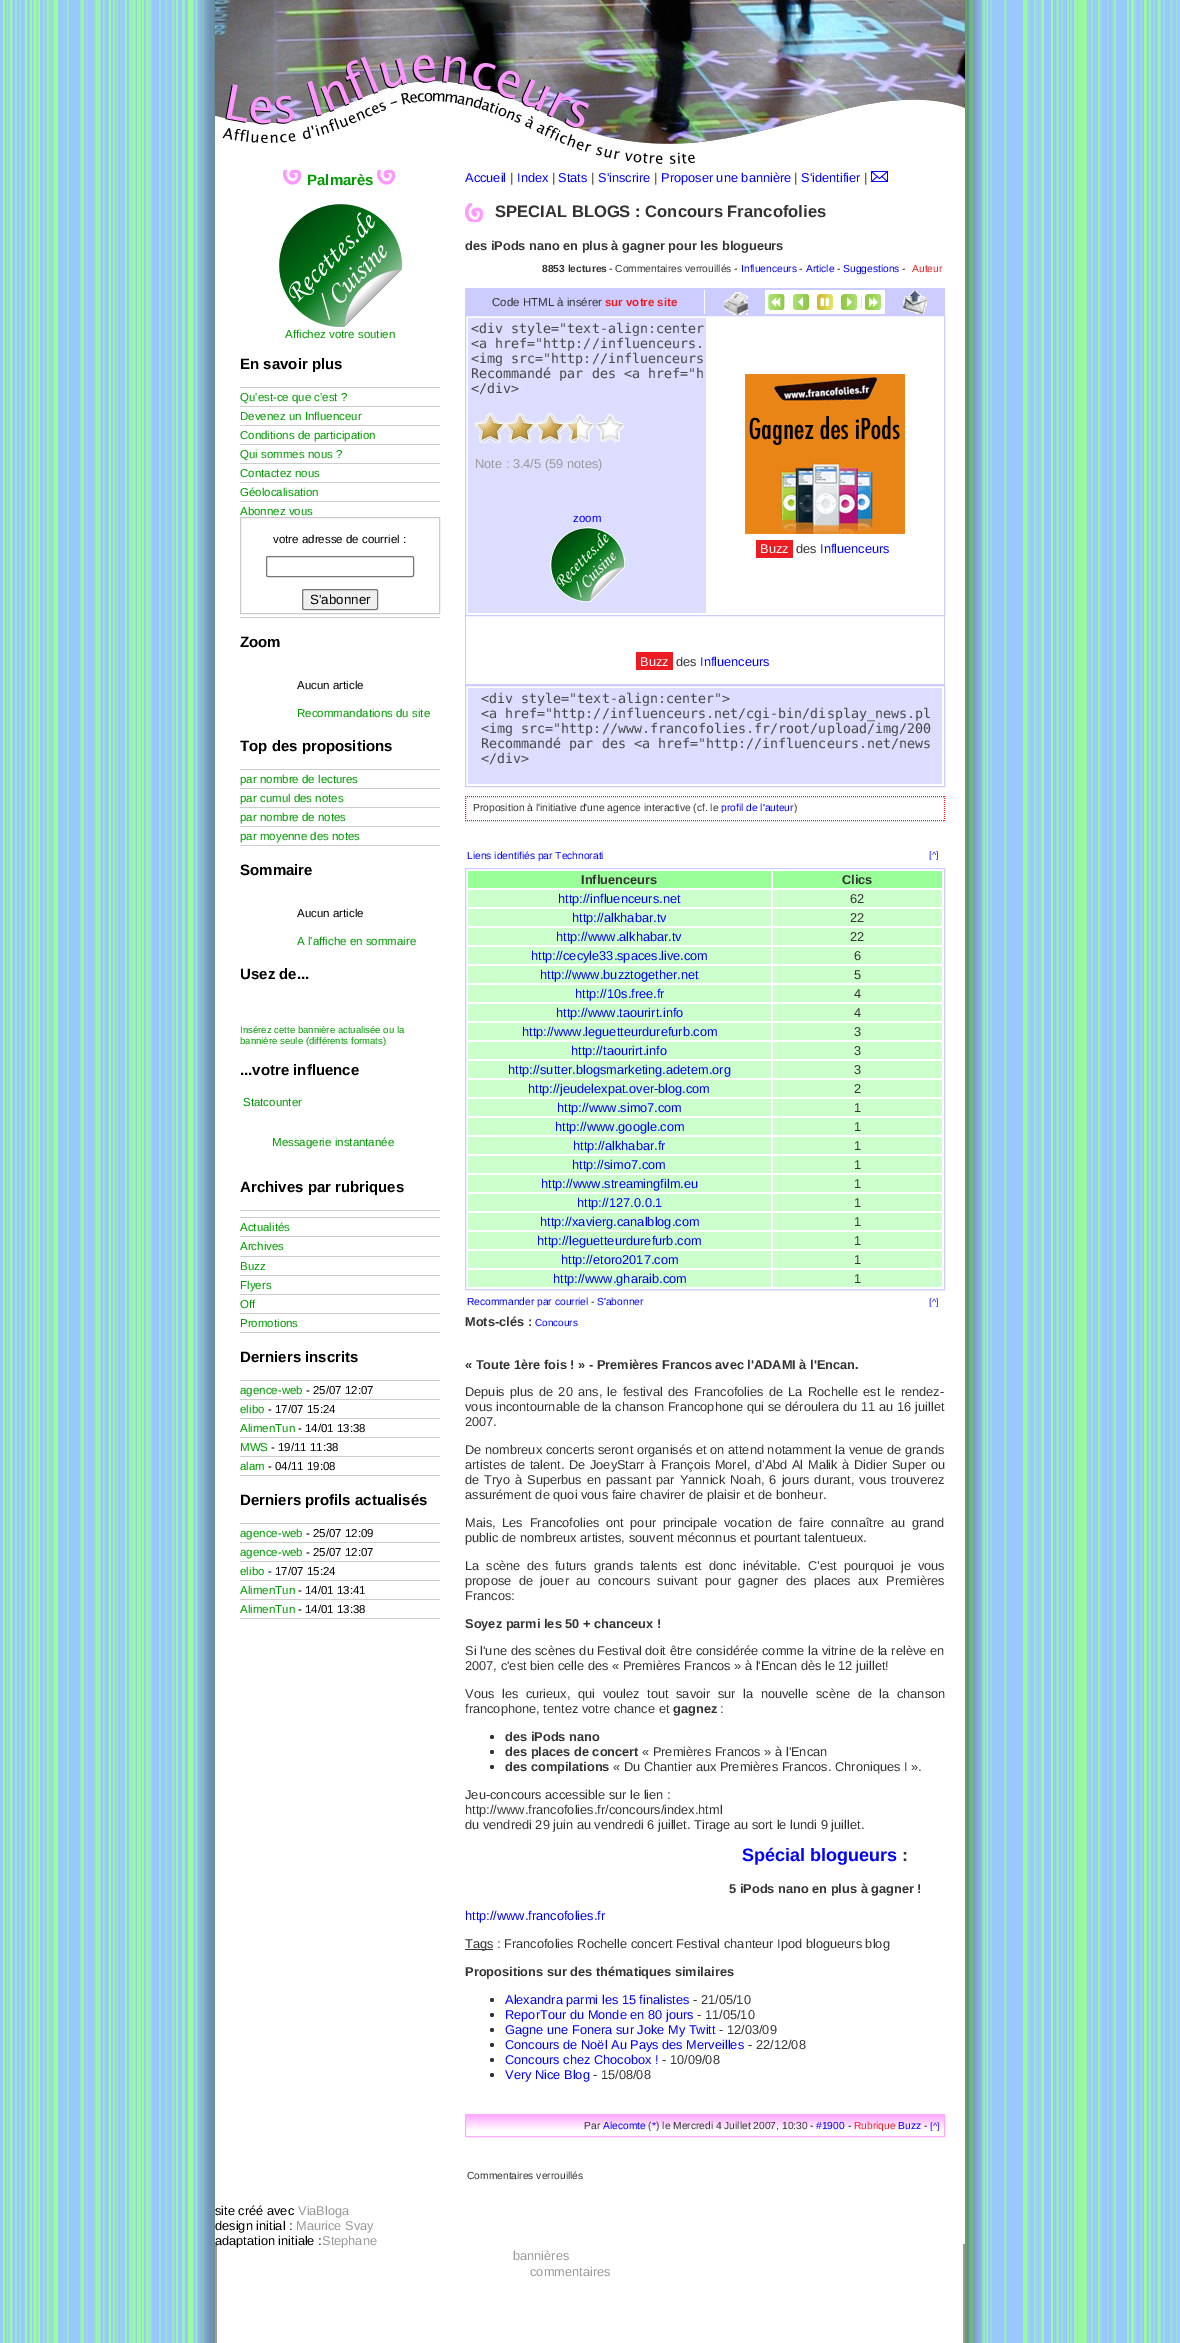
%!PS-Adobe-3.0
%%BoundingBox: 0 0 1180 2343
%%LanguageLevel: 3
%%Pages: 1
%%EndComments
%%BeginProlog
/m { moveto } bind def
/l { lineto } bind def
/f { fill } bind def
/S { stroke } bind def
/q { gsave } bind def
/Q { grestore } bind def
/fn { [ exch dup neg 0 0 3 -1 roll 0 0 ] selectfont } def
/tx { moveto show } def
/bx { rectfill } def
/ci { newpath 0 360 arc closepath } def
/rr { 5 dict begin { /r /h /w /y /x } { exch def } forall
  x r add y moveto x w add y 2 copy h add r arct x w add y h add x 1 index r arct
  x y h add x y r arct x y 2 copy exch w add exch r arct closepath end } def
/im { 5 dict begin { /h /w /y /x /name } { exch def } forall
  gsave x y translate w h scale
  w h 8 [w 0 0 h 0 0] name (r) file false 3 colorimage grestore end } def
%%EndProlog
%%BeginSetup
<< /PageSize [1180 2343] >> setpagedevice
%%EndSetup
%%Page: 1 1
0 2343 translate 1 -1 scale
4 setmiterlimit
1 setgray
0 0 1180 2343 bx
(image0.raw) 0 0 1180 2343 im
215 170 750 2074 bx
215 168 750 2 bx
(image1.raw) 215 0 750 168 im
(image2.raw) 283 170 19 15 im
/LiberationSans-Bold 15 fn
0 0.6 0 setrgbcolor
(Palmarès) 307 185 tx
(image2.raw) 377 170 19 15 im
(image3.raw) 279 204 123 123 im
/LiberationSans-Regular 11.5 fn
(Affichez votre soutien) 285 338 tx
/LiberationSans-Bold 15 fn
0 setgray
(En savoir plus) 240 369 tx
0.8 setgray
240 387 200 1 bx
240 406 200 1 bx
/LiberationSans-Regular 11.5 fn
0 0.6 0 setrgbcolor
(Qu'est-ce que c'est ?) 240 401 tx
0.8 setgray
240 425 200 1 bx
0 0.6 0 setrgbcolor
(Devenez un Influenceur) 240 420 tx
0.8 setgray
240 444 200 1 bx
0 0.6 0 setrgbcolor
(Conditions de participation) 240 439 tx
0.8 setgray
240 463 200 1 bx
0 0.6 0 setrgbcolor
(Qui sommes nous ?) 240 458 tx
0.8 setgray
240 482 200 1 bx
0 0.6 0 setrgbcolor
(Contactez nous) 240 477 tx
0.8 setgray
240 501 200 1 bx
0 0.6 0 setrgbcolor
(Géolocalisation) 240 496 tx
0.8 setgray
240 617 200 1 bx
0 0.6 0 setrgbcolor
(Abonnez vous) 240 515 tx
0.8 setgray
240.5 517.5 199 96 rectstroke
0 setgray
(votre adresse de courriel :) 273 543 tx
0.463 setgray
266.5 556.5 147 20 1.5 rr S
0.937 setgray
302.5 589.5 75 20 1.5 rr q f Q
0.463 setgray
S
/LiberationSans-Regular 13.35 fn
0 setgray
(S'abonner) 310 604 tx
/LiberationSans-Bold 15 fn
(Zoom) 240 647 tx
/LiberationSans-Regular 11.5 fn
(Aucun article) 297 689 tx
0 0.6 0 setrgbcolor
(Recommandations du site) 297 717 tx
/LiberationSans-Bold 15 fn
0 setgray
(Top des propositions) 240 751 tx
0.8 setgray
240 769 200 1 bx
240 788 200 1 bx
/LiberationSans-Regular 11.5 fn
0 0.6 0 setrgbcolor
(par nombre de lectures) 240 783 tx
0.8 setgray
240 807 200 1 bx
0 0.6 0 setrgbcolor
(par cumul des notes) 240 802 tx
0.8 setgray
240 826 200 1 bx
0 0.6 0 setrgbcolor
(par nombre de notes) 240 821 tx
0.8 setgray
240 845 200 1 bx
0 0.6 0 setrgbcolor
(par moyenne des notes) 240 840 tx
/LiberationSans-Bold 15 fn
0 setgray
(Sommaire) 240 875 tx
/LiberationSans-Regular 11.5 fn
(Aucun article) 297 917 tx
0 0.6 0 setrgbcolor
(A l'affiche en sommaire) 297 945 tx
/LiberationSans-Bold 15 fn
0 setgray
(Usez de...) 240 979 tx
/LiberationSans-Regular 9.6 fn
0 0.6 0 setrgbcolor
(Insérez cette bannière actualisée ou la) 240 1033 tx
(bannière seule \(différents formats\)) 240 1044 tx
/LiberationSans-Bold 15 fn
0 setgray
(...votre influence) 240 1075 tx
/LiberationSans-Regular 11.5 fn
0 0.6 0 setrgbcolor
(Statcounter) 243 1106 tx
(Messagerie instantanée) 272 1146 tx
/LiberationSans-Bold 15 fn
0 setgray
(Archives par rubriques) 240 1192 tx
0.8 setgray
240 1210 200 1 bx
240 1217 200 1 bx
240 1236 200 1 bx
/LiberationSans-Regular 11.5 fn
0 0.6 0 setrgbcolor
(Actualités) 240 1231 tx
0.8 setgray
240 1256 200 1 bx
0 0.6 0 setrgbcolor
(Archives) 240 1250 tx
0.8 setgray
240 1275 200 1 bx
0 0.6 0 setrgbcolor
(Buzz) 240 1270 tx
0.8 setgray
240 1294 200 1 bx
0 0.6 0 setrgbcolor
(Flyers) 240 1289 tx
0.8 setgray
240 1313 200 1 bx
0 0.6 0 setrgbcolor
(Off) 240 1308 tx
0.8 setgray
240 1332 200 1 bx
0 0.6 0 setrgbcolor
(Promotions) 240 1327 tx
/LiberationSans-Bold 15 fn
0 setgray
(Derniers inscrits) 240 1362 tx
0.8 setgray
240 1380 200 1 bx
240 1399 200 1 bx
/LiberationSans-Regular 11.5 fn
0 0.6 0 setrgbcolor
(agence-web) 240 1394 tx
0 setgray
(- 25/07 12:07) 306 1394 tx
0.8 setgray
240 1418 200 1 bx
0 0.6 0 setrgbcolor
(elibo) 240 1413 tx
0 setgray
(- 17/07 15:24) 268 1413 tx
0.8 setgray
240 1437 200 1 bx
0 0.6 0 setrgbcolor
(AlimenTun) 240 1432 tx
0 setgray
(- 14/01 13:38) 298 1432 tx
0.8 setgray
240 1456 200 1 bx
0 0.6 0 setrgbcolor
(MWS) 240 1451 tx
0 setgray
(- 19/11 11:38) 271 1451 tx
0.8 setgray
240 1475 200 1 bx
0 0.6 0 setrgbcolor
(alam) 240 1470 tx
0 setgray
(- 04/11 19:08) 268 1470 tx
/LiberationSans-Bold 15 fn
(Derniers profils actualisés) 240 1505 tx
0.8 setgray
240 1523 200 1 bx
240 1542 200 1 bx
/LiberationSans-Regular 11.5 fn
0 0.6 0 setrgbcolor
(agence-web) 240 1537 tx
0 setgray
(- 25/07 12:09) 306 1537 tx
0.8 setgray
240 1561 200 1 bx
0 0.6 0 setrgbcolor
(agence-web) 240 1556 tx
0 setgray
(- 25/07 12:07) 306 1556 tx
0.8 setgray
240 1580 200 1 bx
0 0.6 0 setrgbcolor
(elibo) 240 1575 tx
0 setgray
(- 17/07 15:24) 268 1575 tx
0.8 setgray
240 1599 200 1 bx
0 0.6 0 setrgbcolor
(AlimenTun) 240 1594 tx
0 setgray
(- 14/01 13:41) 298 1594 tx
0.8 setgray
240 1618 200 1 bx
0 0.6 0 setrgbcolor
(AlimenTun) 240 1613 tx
0 setgray
(- 14/01 13:38) 298 1613 tx
/LiberationSans-Regular 12.8 fn
0 0 1 setrgbcolor
(Accueil) 465 182 tx
0.2 setgray
(|) 510 182 tx
0 0 1 setrgbcolor
(Index) 517 182 tx
0.2 setgray
(|) 552 182 tx
0 0 1 setrgbcolor
(Stats) 558 182 tx
0.2 setgray
(|) 591 182 tx
0 0 1 setrgbcolor
(S'inscrire) 598 182 tx
0.2 setgray
(|) 654 182 tx
0 0 1 setrgbcolor
(Proposer une bannière) 661 182 tx
0.2 setgray
(|) 794 182 tx
0 0 1 setrgbcolor
(S'identifier) 801 182 tx
0.2 setgray
(|) 864 182 tx
(image4.raw) 871 171 17 11 im
(image5.raw) 465 203 19 19 im
/LiberationSans-Bold 16.6 fn
(SPECIAL BLOGS : Concours Francofolies) 495 217 tx
/LiberationSans-Bold 12.8 fn
(des iPods nano en plus à gagner pour les blogueurs) 465 250 tx
/LiberationSans-Bold 10.25 fn
(8853 lectures) 542 272 tx
/LiberationSans-Regular 10.25 fn
(- Commentaires verrouillés -) 609 272 tx
0 0 1 setrgbcolor
(Influenceurs) 741 272 tx
0.2 setgray
(-) 799 272 tx
0 0 1 setrgbcolor
(Article) 806 272 tx
0.2 setgray
(-) 837 272 tx
0 0 1 setrgbcolor
(Suggestions) 843 272 tx
0.2 setgray
(-) 902 272 tx
0.929 0.11 0.133 setrgbcolor
(Auteur) 912 272 tx
0.8 0.8 1 setrgbcolor
465 288 480 27 bx
1 setgray
704 290 1 24 bx
/LiberationSans-Regular 11.5 fn
0.2 setgray
(Code HTML à insérer) 492 306 tx
/LiberationSans-Bold 11.5 fn
0.929 0.11 0.133 setrgbcolor
(sur votre site) 605 306 tx
(image6.raw) 724 292 24 23 im
(image7.raw) 765 290 24 24 im
(image8.raw) 768 294 17 16 im
(image9.raw) 789 290 24 24 im
(image10.raw) 793 294 16 16 im
(image11.raw) 813 290 24 24 im
(image12.raw) 837 290 24 24 im
(image13.raw) 841 294 16 16 im
(image7.raw) 861 290 24 24 im
(image14.raw) 861 294 20 16 im
(image15.raw) 903 290 24 24 im
0.8 0.8 1 setrgbcolor
465.5 315.5 479 300 rectstroke
0.867 0.867 1 setrgbcolor
468 318 238 295 bx
/DejaVuSansMono-Regular 13.35 fn
0.278 setgray
(<div style="text-align:center) 471 333 tx
(<a href="http://influenceurs.) 471 348 tx
(<img src="http://influenceurs) 471 363 tx
(Recommandé par des <a href="h) 471 378 tx
(</div>) 471 393 tx
(image16.raw) 577 414 47 28 im
(image17.raw) 475 413 102 30 im
/LiberationSans-Regular 12.8 fn
0.6 setgray
(Note : 3.4/5 \(59 notes\)) 475 468 tx
/LiberationSans-Regular 11.5 fn
0 0 1 setrgbcolor
(zoom) 573 522 tx
(image18.raw) 550 527 75 75 im
(image19.raw) 745 374 160 160 im
0.929 0.11 0.133 setrgbcolor
756 540 37 18 bx
/LiberationSans-Regular 12.8 fn
1 setgray
(Buzz) 760 553 tx
0.2 setgray
(des) 796 553 tx
0 0 1 setrgbcolor
(Influenceurs) 820 553 tx
0.8 0.8 1 setrgbcolor
944 616 1 69 bx
465 684 480 1 bx
465 616 1 69 bx
0.929 0.11 0.133 setrgbcolor
636 652 37 18 bx
1 setgray
(Buzz) 640 666 tx
0.2 setgray
(des) 676 666 tx
0 0 1 setrgbcolor
(Influenceurs) 700 666 tx
0.8 0.8 1 setrgbcolor
465.5 685.5 479 101 rectstroke
0.867 0.867 1 setrgbcolor
468 688 474 96 bx
/DejaVuSansMono-Regular 13.35 fn
0.278 setgray
(<div style="text-align:center">) 481 703 tx
(<a href="http://influenceurs.net/cgi-bin/display_news.pl) 481 718 tx
(<img src="http://www.francofolies.fr/root/upload/img/200) 481 733 tx
(Recommandé par des <a href="http://influenceurs.net/news) 481 748 tx
(</div>) 481 763 tx
0.929 0.11 0.133 setrgbcolor
[1 1] 0 setdash
465 796.5 m 945 796.5 l S
944.5 796 m 944.5 821 l S
465 820.5 m 945 820.5 l S
465.5 796 m 465.5 821 l S
/LiberationSans-Regular 10.25 fn
0.2 setgray
(Proposition à l'initiative d'une agence interactive \(cf. le) 473 811 tx
0 0 1 setrgbcolor
(profil de l'auteur) 721 811 tx
0.2 setgray
(\)) 794 811 tx
0 0 1 setrgbcolor
(Liens identifiés par Technorati) 467 859 tx
/LiberationSans-Regular 9 fn
([^]) 929 858 tx
0.8 0.8 1 setrgbcolor
[] 0 setdash
465.5 868.5 479 421 rectstroke
0.6 1 0.6 setrgbcolor
468 871 303 17 bx
/LiberationSans-Bold 12.8 fn
0.2 setgray
(Influenceurs) 581 884 tx
0.6 1 0.6 setrgbcolor
773 871 169 17 bx
0.2 setgray
(Clics) 842 884 tx
0.8 1 0.8 setrgbcolor
468 890 303 17 bx
/LiberationSans-Regular 12.8 fn
0 0 1 setrgbcolor
(http://influenceurs.net) 558 903 tx
0.8 1 0.8 setrgbcolor
773 890 169 17 bx
0.2 setgray
(62) 850 903 tx
0.8 1 0.8 setrgbcolor
468 909 303 17 bx
0 0 1 setrgbcolor
(http://alkhabar.tv) 572 922 tx
0.8 1 0.8 setrgbcolor
773 909 169 17 bx
0.2 setgray
(22) 850 922 tx
0.8 1 0.8 setrgbcolor
468 928 303 17 bx
0 0 1 setrgbcolor
(http://www.alkhabar.tv) 556 941 tx
0.8 1 0.8 setrgbcolor
773 928 169 17 bx
0.2 setgray
(22) 850 941 tx
0.8 1 0.8 setrgbcolor
468 947 303 17 bx
0 0 1 setrgbcolor
(http://cecyle33.spaces.live.com) 531 960 tx
0.8 1 0.8 setrgbcolor
773 947 169 17 bx
0.2 setgray
(6) 854 960 tx
0.8 1 0.8 setrgbcolor
468 966 303 17 bx
0 0 1 setrgbcolor
(http://www.buzztogether.net) 540 979 tx
0.8 1 0.8 setrgbcolor
773 966 169 17 bx
0.2 setgray
(5) 854 979 tx
0.8 1 0.8 setrgbcolor
468 985 303 17 bx
0 0 1 setrgbcolor
(http://10s.free.fr) 575 998 tx
0.8 1 0.8 setrgbcolor
773 985 169 17 bx
0.2 setgray
(4) 854 998 tx
0.8 1 0.8 setrgbcolor
468 1004 303 17 bx
0 0 1 setrgbcolor
(http://www.taourirt.info) 556 1017 tx
0.8 1 0.8 setrgbcolor
773 1004 169 17 bx
0.2 setgray
(4) 854 1017 tx
0.8 1 0.8 setrgbcolor
468 1023 303 17 bx
0 0 1 setrgbcolor
(http://www.leguetteurdurefurb.com) 522 1036 tx
0.8 1 0.8 setrgbcolor
773 1023 169 17 bx
0.2 setgray
(3) 854 1036 tx
0.8 1 0.8 setrgbcolor
468 1042 303 17 bx
0 0 1 setrgbcolor
(http://taourirt.info) 571 1055 tx
0.8 1 0.8 setrgbcolor
773 1042 169 17 bx
0.2 setgray
(3) 854 1055 tx
0.8 1 0.8 setrgbcolor
468 1061 303 17 bx
0 0 1 setrgbcolor
(http://sutter.blogsmarketing.adetem.org) 508 1074 tx
0.8 1 0.8 setrgbcolor
773 1061 169 17 bx
0.2 setgray
(3) 854 1074 tx
0.8 1 0.8 setrgbcolor
468 1080 303 17 bx
0 0 1 setrgbcolor
(http://jeudelexpat.over-blog.com) 528 1093 tx
0.8 1 0.8 setrgbcolor
773 1080 169 17 bx
0.2 setgray
(2) 854 1093 tx
0.8 1 0.8 setrgbcolor
468 1099 303 17 bx
0 0 1 setrgbcolor
(http://www.simo7.com) 557 1112 tx
0.8 1 0.8 setrgbcolor
773 1099 169 17 bx
0.2 setgray
(1) 854 1112 tx
0.8 1 0.8 setrgbcolor
468 1118 303 17 bx
0 0 1 setrgbcolor
(http://www.google.com) 555 1131 tx
0.8 1 0.8 setrgbcolor
773 1118 169 17 bx
0.2 setgray
(1) 854 1131 tx
0.8 1 0.8 setrgbcolor
468 1137 303 17 bx
0 0 1 setrgbcolor
(http://alkhabar.fr) 573 1150 tx
0.8 1 0.8 setrgbcolor
773 1137 169 17 bx
0.2 setgray
(1) 854 1150 tx
0.8 1 0.8 setrgbcolor
468 1156 303 17 bx
0 0 1 setrgbcolor
(http://simo7.com) 572 1169 tx
0.8 1 0.8 setrgbcolor
773 1156 169 17 bx
0.2 setgray
(1) 854 1169 tx
0.8 1 0.8 setrgbcolor
468 1175 303 17 bx
0 0 1 setrgbcolor
(http://www.streamingfilm.eu) 541 1188 tx
0.8 1 0.8 setrgbcolor
773 1175 169 17 bx
0.2 setgray
(1) 854 1188 tx
0.8 1 0.8 setrgbcolor
468 1194 303 17 bx
0 0 1 setrgbcolor
(http://127.0.0.1) 577 1207 tx
0.8 1 0.8 setrgbcolor
773 1194 169 17 bx
0.2 setgray
(1) 854 1207 tx
0.8 1 0.8 setrgbcolor
468 1213 303 17 bx
0 0 1 setrgbcolor
(http://xavierg.canalblog.com) 540 1226 tx
0.8 1 0.8 setrgbcolor
773 1213 169 17 bx
0.2 setgray
(1) 854 1226 tx
0.8 1 0.8 setrgbcolor
468 1232 303 17 bx
0 0 1 setrgbcolor
(http://leguetteurdurefurb.com) 537 1245 tx
0.8 1 0.8 setrgbcolor
773 1232 169 17 bx
0.2 setgray
(1) 854 1245 tx
0.8 1 0.8 setrgbcolor
468 1251 303 17 bx
0 0 1 setrgbcolor
(http://etoro2017.com) 561 1264 tx
0.8 1 0.8 setrgbcolor
773 1251 169 17 bx
0.2 setgray
(1) 854 1264 tx
0.8 1 0.8 setrgbcolor
468 1270 303 17 bx
0 0 1 setrgbcolor
(http://www.gharaib.com) 553 1283 tx
0.8 1 0.8 setrgbcolor
773 1270 169 17 bx
0.2 setgray
(1) 854 1283 tx
/LiberationSans-Regular 10.25 fn
0 0 1 setrgbcolor
(Recommander par courriel) 467 1305 tx
0.2 setgray
(-) 591 1305 tx
0 0 1 setrgbcolor
(S'abonner) 597 1305 tx
/LiberationSans-Regular 9 fn
([^]) 929 1305 tx
/LiberationSans-Bold 12.8 fn
0.2 setgray
(Mots-clés :) 465 1326 tx
/LiberationSans-Regular 10 fn
0 0 1 setrgbcolor
(Concours) 535 1326 tx
/LiberationSans-Bold 12.8 fn
0.2 setgray
(« Toute 1ère fois ! » - Premières Francos avec l'ADAMI à l'Encan.) 465 1369 tx
/LiberationSans-Regular 12.8 fn
465 1396 m 1.75 0 32 (Depuis plus de 20 ans, le festival des Francofolies de La Rochelle est le rendez-) widthshow
465 1411 m 0.25 0 32 (vous incontournable de la chanson Francophone qui se déroulera du 11 au 16 juillet) widthshow
(2007.) 465 1426 tx
465 1454 m 0.1 0 32 (De nombreux concerts seront organisés et on attend notamment la venue de grands) widthshow
465 1469 m 1 0 32 (artistes de talent. De JoeyStarr à François Morel, d’Abd Al Malik à Didier Super ou) widthshow
465 1484 m 1.5 0 32 (de Tryo à Superbus en passant par Yannick Noah, 6 jours durant, vous trouverez) widthshow
(assurément de quoi vous faire chavirer de plaisir et de bonheur.) 465 1499 tx
465 1527 m 3.1 0 32 (Mais, Les Francofolies ont pour principale vocation de faire connaître au grand) widthshow
(public de nombreux artistes, souvent méconnus et pourtant talentueux.) 465 1542 tx
465 1570 m 3.4 0 32 (La scène des futurs grands talents est donc inévitable. C’est pourquoi je vous) widthshow
465 1585 m 3.9 0 32 (propose de jouer au concours suivant pour gagner des places aux Premières) widthshow
(Francos:) 465 1600 tx
/LiberationSans-Bold 12.8 fn
(Soyez parmi les 50 + chanceux !) 465 1628 tx
/LiberationSans-Regular 12.8 fn
465 1655 m 0.25 0 32 (Si l'une des scènes du Festival doit être considérée comme la vitrine de la relève en) widthshow
(2007, c'est bien celle des « Premières Francos » à l'Encan dès le 12 juillet!) 465 1670 tx
465 1698 m 4 0 32 (Vous les curieux, qui voulez tout savoir sur la nouvelle scène de la chanson) widthshow
(francophone, tentez votre chance et) 465 1713 tx
/LiberationSans-Bold 12.8 fn
(gagnez) 673 1713 tx
/LiberationSans-Regular 12.8 fn
(:) 720 1713 tx
492 1737 2 ci f
/LiberationSans-Bold 12.8 fn
(des iPods nano) 505 1741 tx
492 1752 2 ci f
(des places de concert) 505 1756 tx
/LiberationSans-Regular 12.8 fn
(« Premières Francos » à l'Encan) 642 1756 tx
492 1767 2 ci f
/LiberationSans-Bold 12.8 fn
(des compilations) 505 1771 tx
/LiberationSans-Regular 12.8 fn
(« Du Chantier aux Premières Francos. Chroniques I ».) 613 1771 tx
(Jeu-concours accessible sur le lien :) 465 1799 tx
(http://www.francofolies.fr/concours/index.html) 465 1814 tx
(du vendredi 29 juin au vendredi 6 juillet. Tirage au sort le lundi 9 juillet.) 465 1829 tx
/LiberationSans-Bold 18 fn
0 0 1 setrgbcolor
(Spécial blogueurs) 742 1861 tx
0.2 setgray
(:) 902 1861 tx
/LiberationSans-Bold 12.8 fn
(5 iPods nano en plus à gagner !) 729 1893 tx
/LiberationSans-Regular 12.8 fn
0 0 1 setrgbcolor
(http://www.francofolies.fr) 465 1920 tx
0.2 setgray
465 1949 28 1 bx
(Tags : Francofolies Rochelle concert Festival chanteur Ipod blogueurs blog) 465 1948 tx
/LiberationSans-Bold 12.8 fn
(Propositions sur des thématiques similaires) 465 1976 tx
492 2000 2 ci f
/LiberationSans-Regular 12.8 fn
0 0 1 setrgbcolor
(Alexandra parmi les 15 finalistes) 505 2004 tx
0.2 setgray
(- 21/05/10) 693 2004 tx
492 2015 2 ci f
0 0 1 setrgbcolor
(ReporTour du Monde en 80 jours) 505 2019 tx
0.2 setgray
(- 11/05/10) 697 2019 tx
492 2030 2 ci f
0 0 1 setrgbcolor
(Gagne une Fonera sur Joke My Twitt) 505 2034 tx
0.2 setgray
(- 12/03/09) 719 2034 tx
492 2045 2 ci f
0 0 1 setrgbcolor
(Concours de Noël Au Pays des Merveilles) 505 2049 tx
0.2 setgray
(- 22/12/08) 748 2049 tx
492 2060 2 ci f
0 0 1 setrgbcolor
(Concours chez Chocobox !) 505 2064 tx
0.2 setgray
(- 10/09/08) 662 2064 tx
492 2075 2 ci f
0 0 1 setrgbcolor
(Very Nice Blog) 505 2079 tx
0.2 setgray
(- 15/08/08) 593 2079 tx
(image20.raw) 466 2115 478 15 im
1 0.671 0.984 setrgbcolor
465.5 2114.5 479 22 rectstroke
/LiberationSans-Regular 10.25 fn
0.2 setgray
(Par) 584 2129 tx
0 0 1 setrgbcolor
(Alecomte) 603 2129 tx
0.2 setgray
(\() 648 2129 tx
0 0 1 setrgbcolor
(*) 652 2129 tx
0.2 setgray
(\) le Mercredi 4 Juillet 2007, 10:30 -) 656 2129 tx
0 0 1 setrgbcolor
(#1900) 816 2129 tx
0.2 setgray
(-) 848 2129 tx
0.929 0.11 0.133 setrgbcolor
(Rubrique) 854 2129 tx
0 0 1 setrgbcolor
(Buzz) 898 2129 tx
0.2 setgray
(-) 924 2129 tx
/LiberationSans-Regular 9 fn
0 0 1 setrgbcolor
([^]) 930 2129 tx
/LiberationSans-Regular 10.25 fn
0.2 setgray
(Commentaires verrouillés) 467 2179 tx
/LiberationSans-Regular 12.8 fn
0 setgray
(site créé avec) 215 2215 tx
0.6 setgray
(ViaBloga) 298 2215 tx
0 setgray
(design initial :) 215 2230 tx
0.6 setgray
(Maurice Svay) 296 2230 tx
0 setgray
(adaptation initiale :) 215 2245 tx
0.6 setgray
(Stephane) 322 2245 tx
(bannières) 513 2260 tx
(commentaires) 530 2276 tx
showpage
%%EOF
